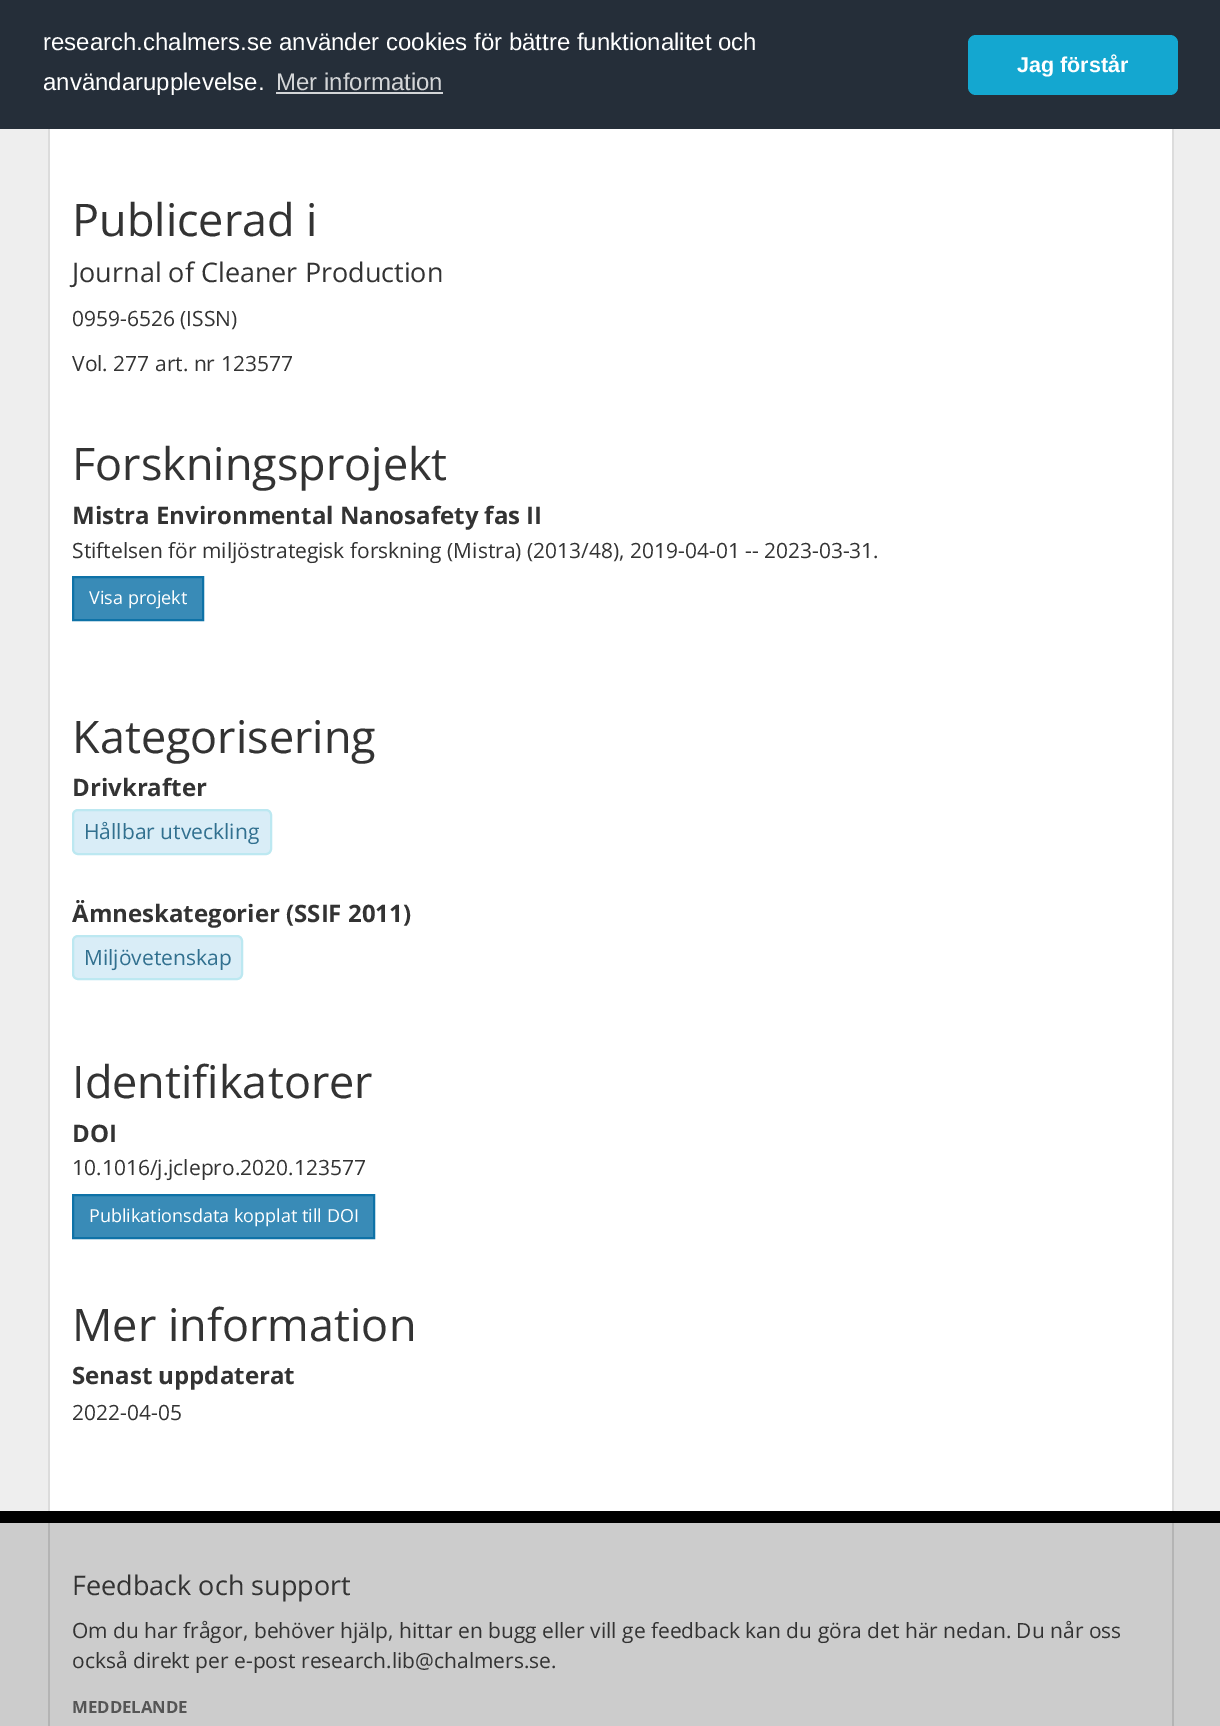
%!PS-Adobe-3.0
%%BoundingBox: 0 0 1220 1726
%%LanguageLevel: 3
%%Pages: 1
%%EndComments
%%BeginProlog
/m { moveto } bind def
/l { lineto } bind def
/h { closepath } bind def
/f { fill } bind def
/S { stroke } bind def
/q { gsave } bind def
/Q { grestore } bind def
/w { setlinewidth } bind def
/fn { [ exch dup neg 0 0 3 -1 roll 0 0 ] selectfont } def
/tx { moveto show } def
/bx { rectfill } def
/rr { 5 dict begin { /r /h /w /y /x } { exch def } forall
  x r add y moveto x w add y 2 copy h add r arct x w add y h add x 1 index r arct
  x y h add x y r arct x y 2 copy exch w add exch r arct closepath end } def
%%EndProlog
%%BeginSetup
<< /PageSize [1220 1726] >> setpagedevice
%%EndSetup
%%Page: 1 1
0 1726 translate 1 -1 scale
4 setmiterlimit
0.933 setgray
0 0 1220 1726 bx
0.145 0.18 0.224 setrgbcolor
0 0 1220 129 bx
/LiberationSans-Regular 24 fn
1 setgray
(research.chalmers.se använder cookies för bättre funktionalitet och) 43 50 tx
(användarupplevelse.) 43 90 tx
0.827 0.835 0.843 setrgbcolor
(Mer information) 276 90 tx
276 92 167 2 bx
0.078 0.655 0.816 setrgbcolor
968 35 210 60 8 rr f
/LiberationSans-Bold 21.5 fn
1 setgray
(Jag förstår) 1017 72 tx
50 129 1122 1382 bx
0.863 setgray
1172 129 2 1382 bx
48 129 2 1382 bx
/OpenSans-Regular 45 fn
0.2 setgray
(Publicerad i) 72 236 tx
/OpenSans-Regular 27 fn
(Journal of Cleaner Production) 72 282 tx
/OpenSans-Regular 21 fn
(0959-6526 \(ISSN\)) 72 326 tx
(Vol. 277 art. nr 123577) 72 371 tx
/OpenSans-Regular 45 fn
(Forskningsprojekt) 72 480 tx
/OpenSans-Bold 24 fn
(Mistra Environmental Nanosafety fas II) 72 524 tx
/OpenSans-Regular 21 fn
(Stiftelsen för miljöstrategisk forskning \(Mistra\) \(2013/48\), 2019-04-01 -- 2023-03-31.) 72 558 tx
0.224 0.545 0.718 setrgbcolor
73 577 m 203 577 l 203 620 l 73 620 l h q f Q
0.055 0.447 0.655 setrgbcolor
2 w
S
/OpenSans-Regular 18 fn
1 setgray
(Visa projekt) 89 604 tx
/OpenSans-Regular 45 fn
0.2 setgray
(Kategorisering) 72 753 tx
/OpenSans-Bold 24 fn
(Drivkrafter) 72 796 tx
0.851 0.929 0.969 setrgbcolor
73 810 198 44 5 rr q f Q
0.737 0.91 0.945 setrgbcolor
S
/OpenSans-Regular 21 fn
0.192 0.439 0.561 setrgbcolor
(Hållbar utveckling) 84 839 tx
/OpenSans-Bold 24 fn
0.2 setgray
(Ämneskategorier \(SSIF 2011\)) 72 922 tx
0.851 0.929 0.969 setrgbcolor
73 936 169 43 5 rr q f Q
0.737 0.91 0.945 setrgbcolor
S
/OpenSans-Regular 21 fn
0.192 0.439 0.561 setrgbcolor
(Miljövetenskap) 84 965 tx
/OpenSans-Regular 45 fn
0.2 setgray
(Identifikatorer) 72 1098 tx
/OpenSans-Bold 24 fn
(DOI) 72 1142 tx
/OpenSans-Regular 21 fn
(10.1016/j.jclepro.2020.123577) 72 1175 tx
0.224 0.545 0.718 setrgbcolor
73 1195 m 374 1195 l 374 1238 l 73 1238 l h q f Q
0.055 0.447 0.655 setrgbcolor
S
/OpenSans-Regular 18 fn
1 setgray
(Publikationsdata kopplat till DOI) 89 1222 tx
/OpenSans-Regular 45 fn
0.2 setgray
(Mer information) 72 1341 tx
/OpenSans-Bold 24 fn
(Senast uppdaterat) 72 1384 tx
/OpenSans-Regular 21 fn
(2022-04-05) 72 1420 tx
0.8 setgray
0 1523 1220 203 bx
0 setgray
0 1511 1220 12 bx
0.706 setgray
1172 1523 2 203 bx
48 1523 2 203 bx
/OpenSans-Regular 27 fn
0.2 setgray
(Feedback och support) 72 1595 tx
/OpenSans-Regular 21 fn
(Om du har frågor, behöver hjälp, hittar en bugg eller vill ge feedback kan du göra det här nedan. Du når oss) 72 1638 tx
(också direkt per e-post research.lib@chalmers.se.) 72 1668 tx
/OpenSans-Bold 16.75 fn
0.333 setgray
(MEDDELANDE) 72 1713 tx
showpage
%%EOF
